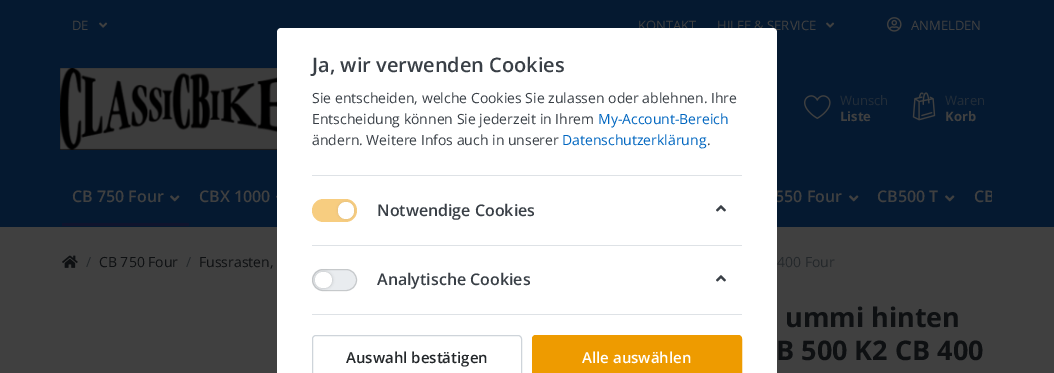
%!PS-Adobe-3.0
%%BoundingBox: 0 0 1054 373
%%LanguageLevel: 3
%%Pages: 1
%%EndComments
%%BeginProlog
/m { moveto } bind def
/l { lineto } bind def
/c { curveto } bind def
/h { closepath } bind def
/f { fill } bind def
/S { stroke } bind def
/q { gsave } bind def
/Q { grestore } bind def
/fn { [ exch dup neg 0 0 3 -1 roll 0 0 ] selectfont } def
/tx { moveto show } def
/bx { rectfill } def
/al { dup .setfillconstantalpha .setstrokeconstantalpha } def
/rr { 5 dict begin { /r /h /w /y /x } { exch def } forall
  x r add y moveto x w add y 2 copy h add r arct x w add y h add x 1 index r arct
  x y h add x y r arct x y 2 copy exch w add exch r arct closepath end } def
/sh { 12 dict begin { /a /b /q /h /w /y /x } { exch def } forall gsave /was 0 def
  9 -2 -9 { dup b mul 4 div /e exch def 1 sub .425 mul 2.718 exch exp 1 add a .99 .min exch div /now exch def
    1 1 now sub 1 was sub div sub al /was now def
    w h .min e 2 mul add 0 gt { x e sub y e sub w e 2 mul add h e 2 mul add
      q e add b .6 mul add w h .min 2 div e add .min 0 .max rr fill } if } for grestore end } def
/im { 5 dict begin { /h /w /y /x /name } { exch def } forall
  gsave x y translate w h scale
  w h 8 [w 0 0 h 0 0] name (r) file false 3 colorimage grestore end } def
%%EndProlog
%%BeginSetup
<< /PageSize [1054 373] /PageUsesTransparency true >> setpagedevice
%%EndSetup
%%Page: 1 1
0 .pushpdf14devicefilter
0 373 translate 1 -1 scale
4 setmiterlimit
0.251 setgray
0 0 1054 373 bx
0.02 0.098 0.188 setrgbcolor
0 0 1054 227 bx
/OpenSans-Regular 13 fn
0.251 setgray
(DE) 72 30 tx
(image0.raw) 99 22 9 6 im
(KONTAKT) 638 30 tx
(HILFE & SERVICE) 717 30 tx
(image0.raw) 826 22 9 6 im
(image1.raw) 887 17 15 15 im
(ANMELDEN) 911 30 tx
(image2.raw) 60 68 217 82 im
(image3.raw) 804 95 27 24 im
0.137 0.176 0.22 setrgbcolor
(Wunsch) 840 105 tx
/OpenSans-Bold 13 fn
0.251 setgray
(Liste) 840 121 tx
(image4.raw) 912 92 24 29 im
/OpenSans-Regular 13 fn
0.137 0.176 0.22 setrgbcolor
(Waren) 945 105 tx
/OpenSans-Bold 13 fn
0.251 setgray
(Korb) 945 121 tx
/OpenSans-SemiBold 16 fn
(CB 750 Four) 72 202 tx
(image5.raw) 170 195 10 7 im
0.063 0.078 0.176 setrgbcolor
62 223 127 3 bx
0.251 setgray
(CBX 1000) 199 202 tx
(image6.raw) 276 195 1 3 im
(550 Four) 775 202 tx
(image5.raw) 849 195 10 7 im
(CB500 T) 877 202 tx
(image5.raw) 945 195 10 7 im
q
62 166 930 61 rectclip
(CB) 974 202 tx
Q
(image7.raw) 62 255 16 13 im
/OpenSans-Regular 14 fn
0.137 0.153 0.165 setrgbcolor
(/) 86 267 tx
0.055 0.063 0.071 setrgbcolor
(CB 750 Four) 99 267 tx
0.137 0.153 0.165 setrgbcolor
(/) 186 267 tx
0.055 0.063 0.071 setrgbcolor
(Fussrasten,) 199 267 tx
0.137 0.153 0.165 setrgbcolor
(400 Four) 777 267 tx
/OpenSans-Bold 27 fn
0.055 0.063 0.071 setrgbcolor
(ummi hinten) 785 327 tx
(B 500 K2 CB 400) 776 360 tx
1 setgray
281 28 m 773 28 l 775 28 777 30 777 32 c 777 373 l 277 373 l 277 32 l 277 30 279 28 281 28 c h f
/OpenSans-SemiBold 20 fn
0.224 0.247 0.275 setrgbcolor
(Ja, wir verwenden Cookies) 312 72 tx
/OpenSans-Regular 14 fn
(Sie entscheiden, welche Cookies Sie zulassen oder ablehnen. Ihre) 312 103 tx
(Entscheidung können Sie jederzeit in Ihrem) 312 124 tx
0 0.4 0.753 setrgbcolor
(My-Account-Bereich) 598 124 tx
0.224 0.247 0.275 setrgbcolor
(ändern. Weitere Infos auch in unserer) 312 145 tx
0 0.4 0.753 setrgbcolor
(Datenschutzerklärung) 562 145 tx
0.224 0.247 0.275 setrgbcolor
(.) 707 145 tx
0.871 0.886 0.902 setrgbcolor
312 175 430 1 bx
312 245 430 1 bx
0.969 0.804 0.502 setrgbcolor
312 199 45 23 11.5 rr f
0.502 setgray
338 202 16 17 8 1.5 0.2 sh
1 setgray
338 202 16 17 8 rr f
/OpenSans-SemiBold 16 fn
0.224 0.247 0.275 setrgbcolor
(Notwendige Cookies) 377 216 tx
(image8.raw) 716 205 10 7 im
0.871 0.886 0.902 setrgbcolor
312 314 430 1 bx
0.914 0.925 0.937 setrgbcolor
312 269 45 22 11 rr f
0.15 al
0 setgray
312.5 269.5 44 21 10.5 rr S
1 al
315 272 17 16 8 1.5 0.2 sh
1 setgray
315 272 17 16 8 rr f
0.224 0.247 0.275 setrgbcolor
(Analytische Cookies) 377 285 tx
(image8.raw) 716 275 10 7 im
0.808 0.831 0.855 setrgbcolor
312.5 335.5 209 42 3.5 rr S
/OpenSans-SemiBold 15 fn
0.137 0.153 0.165 setrgbcolor
(Auswahl bestätigen) 346 363 tx
0.933 0.608 0 setrgbcolor
536 335 m 738 335 l 740 335 742 337 742 339 c 742 373 l 532 373 l 532 339 l 532 337 534 335 536 335 c h f
532.5 335.5 209 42 3.5 rr S
1 setgray
(Alle auswählen) 582 363 tx
.poppdf14devicefilter showpage
%%EOF
